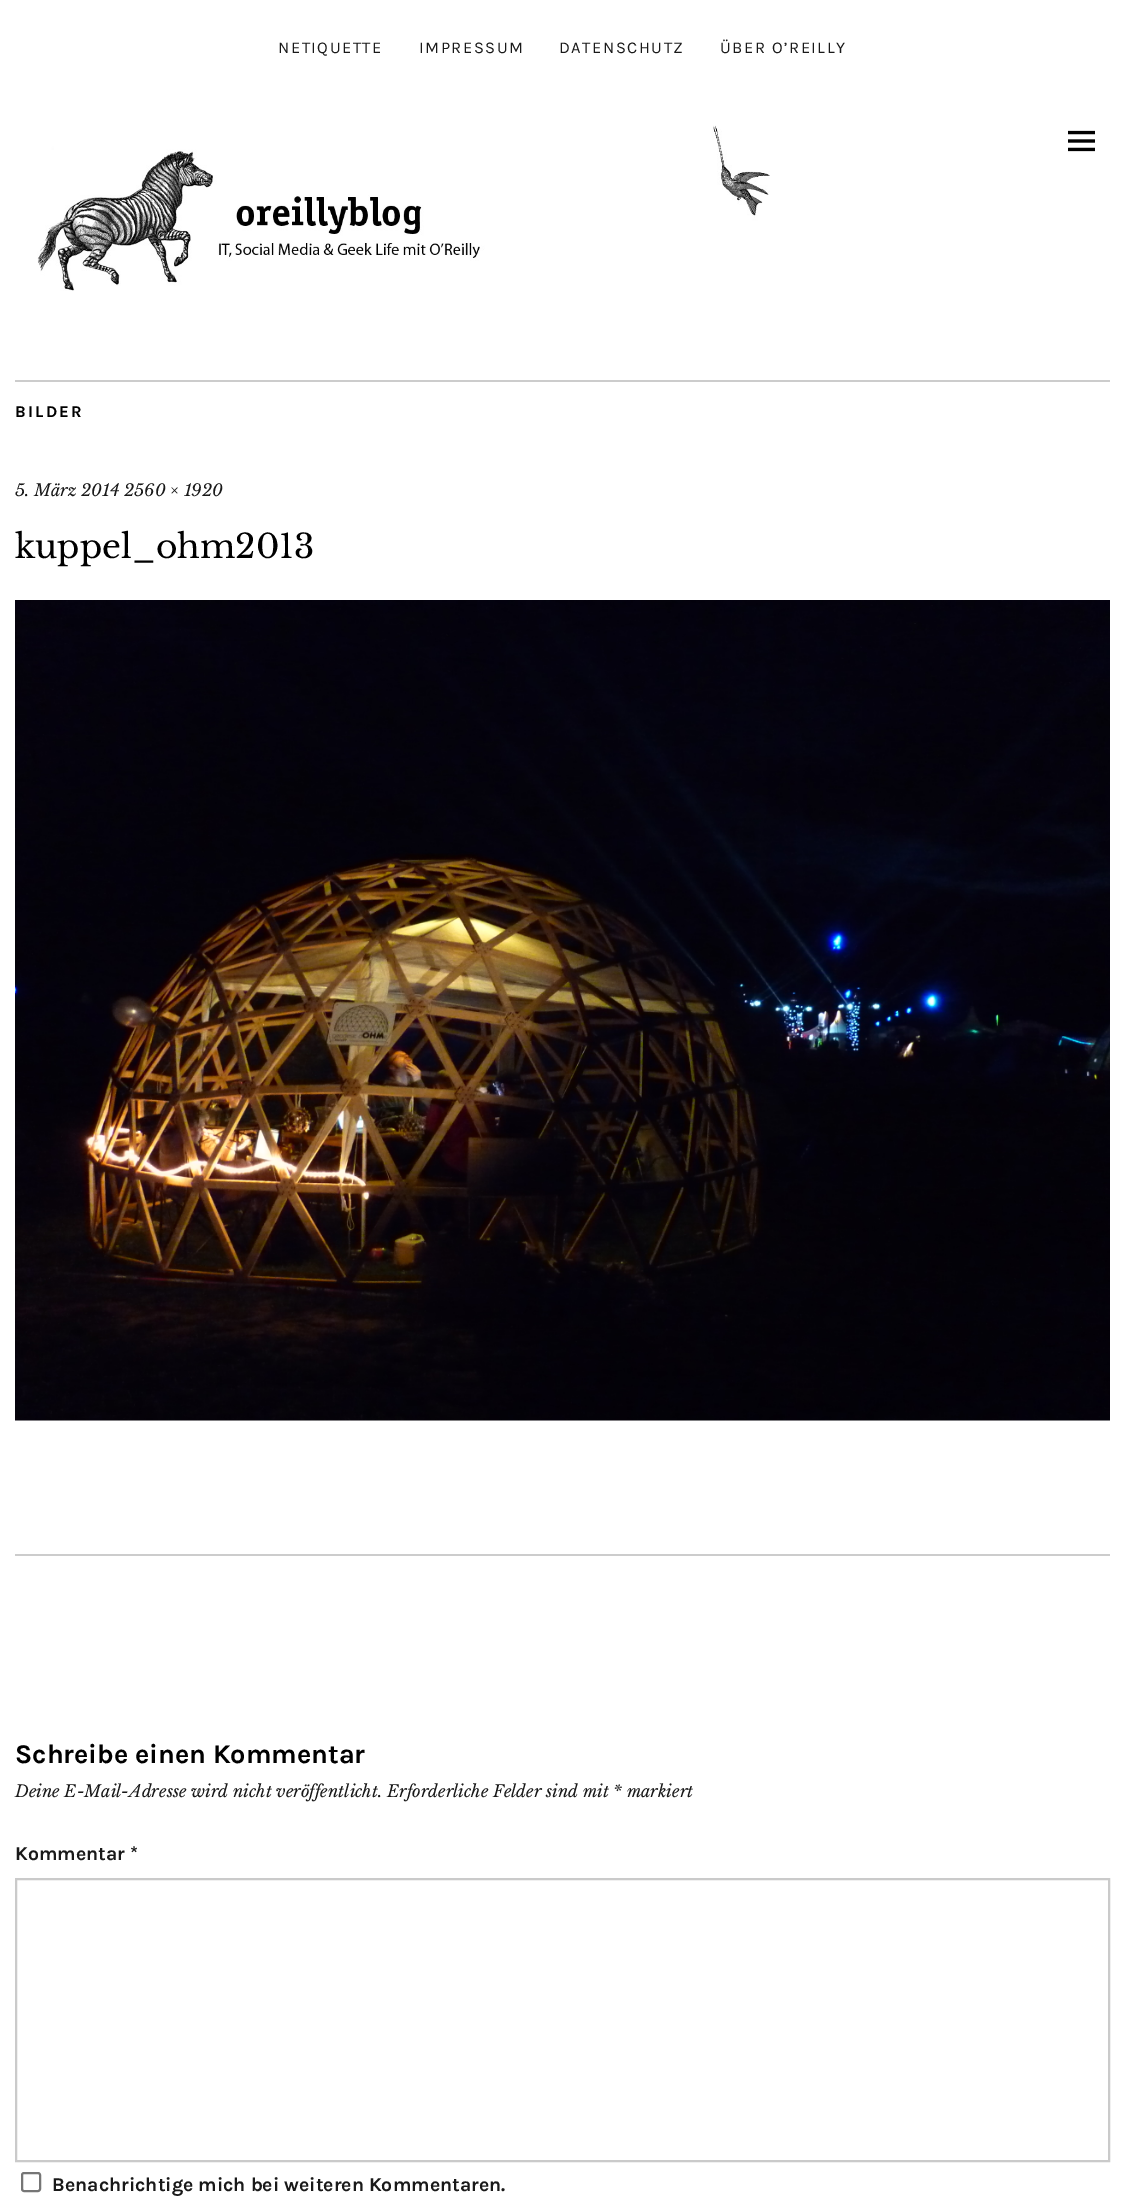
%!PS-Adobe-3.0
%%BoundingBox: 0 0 1124 2205
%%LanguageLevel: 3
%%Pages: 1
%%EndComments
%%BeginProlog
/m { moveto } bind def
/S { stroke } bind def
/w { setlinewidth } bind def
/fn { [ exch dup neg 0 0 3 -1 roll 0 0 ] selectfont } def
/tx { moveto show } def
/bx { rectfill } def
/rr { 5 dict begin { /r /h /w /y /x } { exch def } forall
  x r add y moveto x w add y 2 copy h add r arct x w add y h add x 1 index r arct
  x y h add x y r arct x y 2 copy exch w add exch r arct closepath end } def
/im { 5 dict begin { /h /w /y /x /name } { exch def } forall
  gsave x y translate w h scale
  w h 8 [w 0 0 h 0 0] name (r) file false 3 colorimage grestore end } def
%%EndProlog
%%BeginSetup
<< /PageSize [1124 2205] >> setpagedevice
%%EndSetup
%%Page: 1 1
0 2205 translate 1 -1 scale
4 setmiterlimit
1 setgray
0 0 1124 2205 bx
/Karla-Regular 16.5 fn
0.098 setgray
278 53 m 1.5 0 (NETIQUETTE) ashow
419 53 m 1.5 0 (IMPRESSUM) ashow
559 53 m 1.5 0 (DATENSCHUTZ) ashow
720 53 m 1.5 0 (ÜBER O’REILLY) ashow
(image0.raw) 37 125 733 166 im
(image1.raw) 1068 130 27 22 im
0.8 setgray
15 380 1095 2 bx
/Karla-Bold 16.5 fn
0 setgray
15 417 m 2.25 0 (BILDER) ashow
0.8 setgray
15 1554 1095 2 bx
/LibreBaskerville-Italic 16.5 fn
0.098 setgray
(5. März 2014 2560 × 1920) 15 496 tx
/LibreBaskerville-Regular 33 fn
0 setgray
(kuppel_ohm2013) 15 558 tx
(image2.raw) 15 600 1095 821 im
/Karla-Bold 27 fn
(Schreibe einen Kommentar) 15 1763 tx
/LibreBaskerville-Italic 16.5 fn
0.098 setgray
(Deine E-Mail-Adresse wird nicht veröffentlicht. Erforderliche Felder sind mit * markiert) 15 1797 tx
/Karla-Bold 19.5 fn
(Kommentar *) 15 1860 tx
0.792 setgray
2 w
16 1879 1093 282 rectstroke
0.463 setgray
22 2173 18 18 2 rr S
0.098 setgray
(Benachrichtige mich bei weiteren Kommentaren.) 52 2191 tx
showpage
%%EOF
